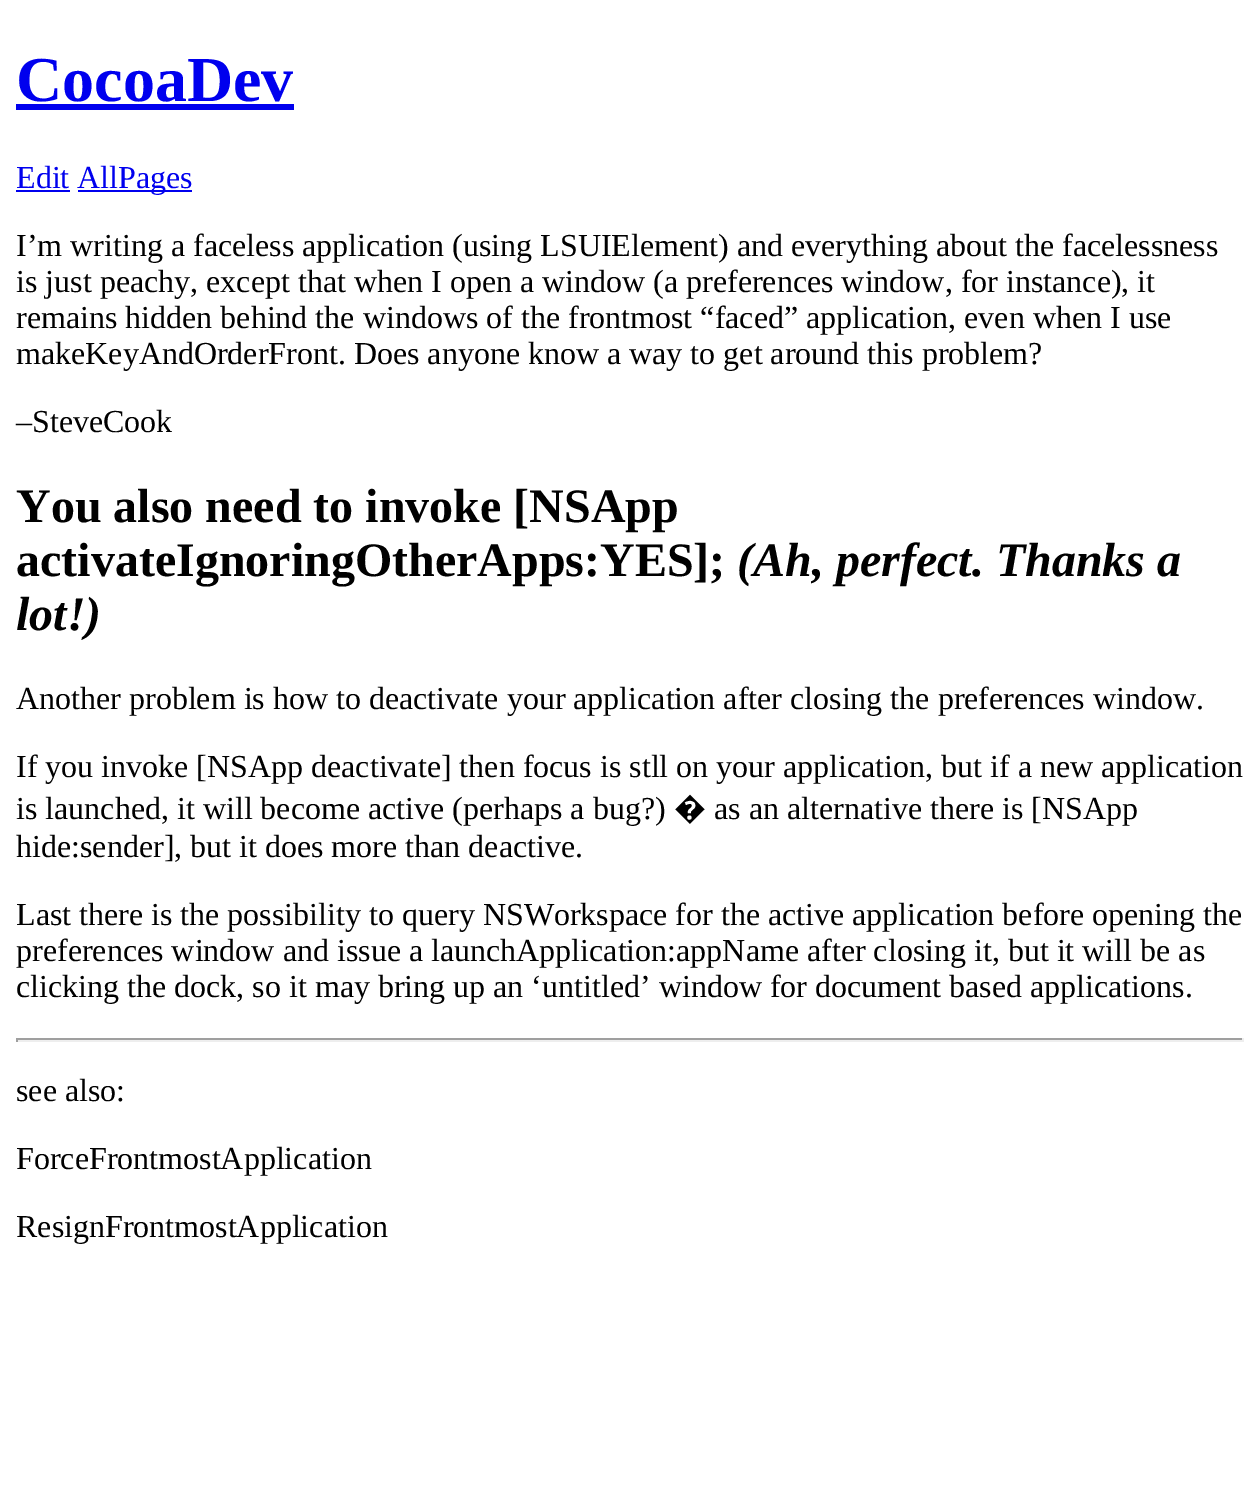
%!PS-Adobe-3.0
%%BoundingBox: 0 0 1259 1498
%%LanguageLevel: 3
%%Pages: 1
%%EndComments
%%BeginProlog
/fn { [ exch dup neg 0 0 3 -1 roll 0 0 ] selectfont } def
/tx { moveto show } def
/bx { rectfill } def
%%EndProlog
%%BeginSetup
<< /PageSize [1259 1498] >> setpagedevice
%%EndSetup
%%Page: 1 1
0 1498 translate 1 -1 scale
4 setmiterlimit
1 setgray
0 0 1259 1498 bx
/LiberationSerif-Bold 64 fn
0 0 0.933 setrgbcolor
(CocoaDev) 16 101 tx
16 104 278 6 bx
/LiberationSerif-Regular 32 fn
(Edit) 16 188 tx
16 190 54 2 bx
78 190 114 2 bx
(AllPages) 77 188 tx
0 setgray
(I’m writing a faceless application \(using LSUIElement\) and everything about the facelessness) 16 256 tx
(is just peachy, except that when I open a window \(a preferences window, for instance\), it) 16 292 tx
(remains hidden behind the windows of the frontmost “faced” application, even when I use) 16 328 tx
(makeKeyAndOrderFront. Does anyone know a way to get around this problem?) 16 364 tx
(–SteveCook) 16 432 tx
/LiberationSerif-Bold 48 fn
(You also need to invoke [NSApp) 16 522 tx
(activateIgnoringOtherApps:YES];) 16 576 tx
/LiberationSerif-BoldItalic 48 fn
(\(Ah, perfect. Thanks a) 737 576 tx
(lot!\)) 16 630 tx
/LiberationSerif-Regular 32 fn
(Another problem is how to deactivate your application after closing the preferences window.) 16 709 tx
(If you invoke [NSApp deactivate] then focus is stll on your application, but if a new application) 16 777 tx
(is launched, it will become active \(perhaps a bug?\)) 16 819 tx
/NotoSans-Regular 32 fn
(�) 674 819 tx
/LiberationSerif-Regular 32 fn
(as an alternative there is [NSApp) 714 819 tx
(hide:sender], but it does more than deactive.) 16 857 tx
(Last there is the possibility to query NSWorkspace for the active application before opening the) 16 925 tx
(preferences window and issue a launchApplication:appName after closing it, but it will be as) 16 961 tx
(clicking the dock, so it may bring up an ‘untitled’ window for document based applications.) 16 997 tx
0.624 setgray
16 1038 1228 2 bx
0.933 setgray
1242 1038 2 4 bx
16 1040 1228 2 bx
0.624 setgray
16 1038 2 4 bx
0 setgray
(see also:) 16 1101 tx
(ForceFrontmostApplication) 16 1169 tx
(ResignFrontmostApplication) 16 1237 tx
showpage
%%EOF
